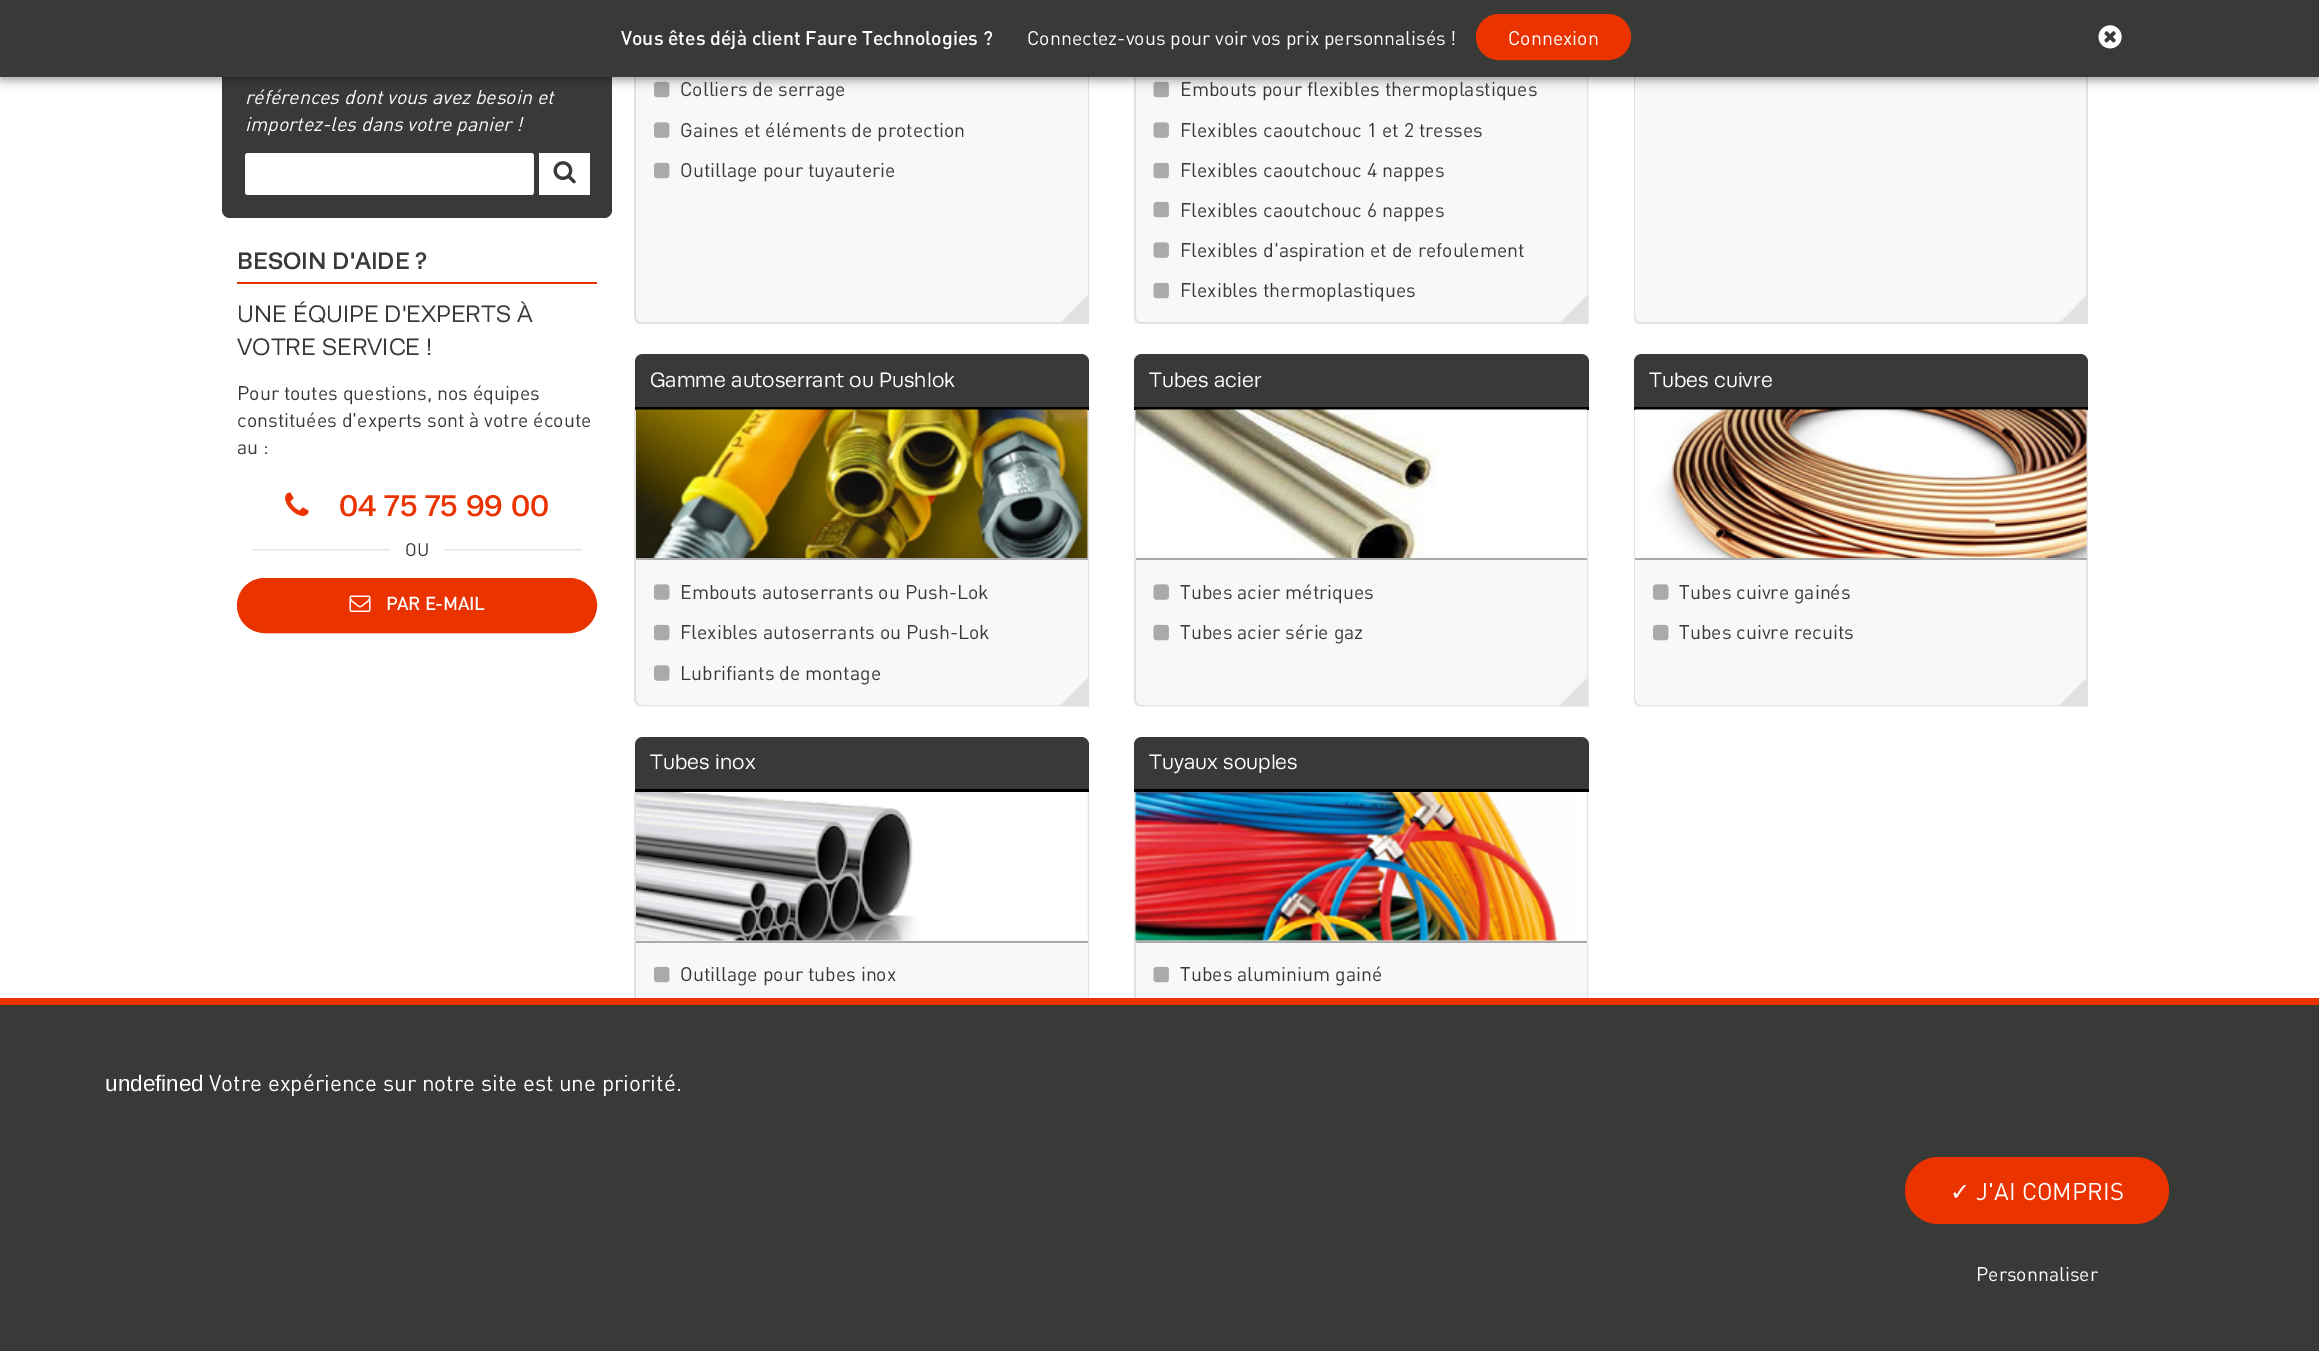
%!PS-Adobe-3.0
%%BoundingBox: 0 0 2319 1351
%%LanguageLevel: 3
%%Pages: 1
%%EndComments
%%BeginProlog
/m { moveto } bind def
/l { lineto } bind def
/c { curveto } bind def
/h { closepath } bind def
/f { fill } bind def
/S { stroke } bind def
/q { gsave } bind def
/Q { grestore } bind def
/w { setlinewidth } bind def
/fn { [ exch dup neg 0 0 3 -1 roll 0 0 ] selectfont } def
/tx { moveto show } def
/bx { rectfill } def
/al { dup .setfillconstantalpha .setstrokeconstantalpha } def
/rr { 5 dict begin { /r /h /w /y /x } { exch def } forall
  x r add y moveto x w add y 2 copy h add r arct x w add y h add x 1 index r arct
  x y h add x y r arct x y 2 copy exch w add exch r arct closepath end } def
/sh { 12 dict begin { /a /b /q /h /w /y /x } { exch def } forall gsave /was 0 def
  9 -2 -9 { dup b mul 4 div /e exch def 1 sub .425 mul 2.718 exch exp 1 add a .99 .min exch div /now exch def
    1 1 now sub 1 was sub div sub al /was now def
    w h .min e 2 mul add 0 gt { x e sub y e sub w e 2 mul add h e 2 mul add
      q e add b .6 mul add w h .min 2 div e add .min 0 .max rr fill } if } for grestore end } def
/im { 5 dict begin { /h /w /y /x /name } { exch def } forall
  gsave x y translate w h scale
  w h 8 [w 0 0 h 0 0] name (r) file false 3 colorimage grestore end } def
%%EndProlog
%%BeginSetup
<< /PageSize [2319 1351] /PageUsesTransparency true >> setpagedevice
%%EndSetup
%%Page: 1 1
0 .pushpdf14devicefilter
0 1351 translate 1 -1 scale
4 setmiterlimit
1 setgray
0 0 2319 1351 bx
0.216 0.227 0.212 setrgbcolor
222 -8 390 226 8 rr f
0.973 setgray
635 77 453 247 bx
(image5.raw) 1060 294 29 30 im
0.882 setgray
634 -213 m 1089 -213 l 1089 316 l 1089 321 1086 324 1082 324 c 642 324 l 638 324 634 321 634 316 c h 636 -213 m 1088 -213 l 1088 316 l 1088 320 1085 322 1082 322 c 642 322 l 639 322 636 320 636 316 c h eofill
(image6.raw) 654 81 16 17 im
0.973 setgray
1134 77 455 247 bx
(image8.raw) 1559 294 30 30 im
0.882 setgray
1134 -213 m 1588 -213 l 1588 316 l 1588 321 1585 324 1581 324 c 1142 324 l 1137 324 1134 321 1134 316 c h 1136 -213 m 1587 -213 l 1587 316 l 1587 320 1584 322 1581 322 c 1142 322 l 1138 322 1136 320 1136 316 c h eofill
(image9.raw) 1153 81 16 17 im
0.973 setgray
1634 77 452 247 bx
(image11.raw) 2059 295 29 29 im
0.882 setgray
1634 -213 m 2088 -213 l 2088 316 l 2088 321 2085 324 2080 324 c 1641 324 l 1637 324 1634 321 1634 316 c h 1635 -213 m 2086 -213 l 2086 316 l 2086 320 2084 322 2080 322 c 1641 322 l 1638 322 1635 320 1635 316 c h eofill
0 setgray
2 5 2316 73 0 3 0.2 sh
0 2 2319 76 0 7.5 0.12 sh
0 6 2319 77 0 4 0.14 sh
0.216 0.227 0.212 setrgbcolor
0 0 2319 77 bx
/DIN-Medium 19.5 fn
1 setgray
(Vous êtes déjà client Faure Technologies ?) 621 45 tx
/DIN-Regular 19.5 fn
(Connectez-vous pour voir vos prix personnalisés !) 1027 45 tx
0.922 0.2 0 setrgbcolor
1477 15 153 44 22 rr q f Q
2 w
S
1 setgray
(Connexion) 1508 45 tx
(image0.raw) 2098 25 24 24 im
/DIN-Italic 19.5 fn
(références dont vous avez besoin et) 245 104 tx
(importez-les dans votre panier !) 245 131 tx
245 153 289 42 3 rr f
539 153 51 42 bx
(image1.raw) 553 161 23 23 im
0.922 0.2 0 setrgbcolor
237 282 360 2 bx
/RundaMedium-Medium 24 fn
0.216 0.227 0.212 setrgbcolor
(BESOIN D'AIDE ?) 237 269 tx
/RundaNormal-Regular 24 fn
(UNE ÉQUIPE D'EXPERTS À) 237 322 tx
(VOTRE SERVICE !) 237 355 tx
/DIN-Regular 19.5 fn
(Pour toutes questions, nos équipes) 237 400 tx
(constituées d'experts sont à votre écoute) 237 427 tx
(au :) 237 454 tx
(image2.raw) 285 492 24 24 im
/RundaMedium-Medium 30 fn
0.922 0.2 0 setrgbcolor
(04 75 75 99 00) 339 516 tx
(image3.raw) 252 549 330 2 im
1 setgray
390 549 54 2 bx
/DIN-Regular 18 fn
0.216 0.227 0.212 setrgbcolor
(OU) 405 556 tx
0.922 0.2 0 setrgbcolor
238.5 579.5 357 52 26 rr q f Q
3 w
S
(image4.raw) 349 595 22 17 im
/DIN-Bold 18 fn
1 setgray
(PAR E-MAIL) 386 610 tx
/DIN-Regular 19.5 fn
0.216 0.227 0.212 setrgbcolor
(Colliers de serrage) 680 96 tx
(image7.raw) 654 122 16 16 im
(Gaines et éléments de protection) 680 137 tx
(image6.raw) 654 162 16 17 im
(Outillage pour tuyauterie) 680 177 tx
(Embouts pour flexibles thermoplastiques) 1180 96 tx
(image10.raw) 1153 122 16 16 im
(Flexibles caoutchouc 1 et 2 tresses) 1180 137 tx
(image9.raw) 1153 162 16 17 im
(Flexibles caoutchouc 4 nappes) 1180 177 tx
(image9.raw) 1153 201 16 17 im
(Flexibles caoutchouc 6 nappes) 1180 217 tx
(image10.raw) 1153 242 16 16 im
(Flexibles d'aspiration et de refoulement) 1180 257 tx
(image9.raw) 1153 282 16 17 im
(Flexibles thermoplastiques) 1180 297 tx
0.973 setgray
635 354 454 353 bx
(image12.raw) 1059 676 30 31 im
0.216 0.227 0.212 setrgbcolor
643 354 m 1081 354 l 1085.5 354 1089 357.5 1089 362 c 1089 410 l 635 410 l 635 362 l 635 357.5 638.5 354 643 354 c h f
0 setgray
635 407 454 3 bx
/RundaNormal-Regular 21 fn
1 setgray
(Gamme autoserrant ou Pushlok) 650 387 tx
0.882 setgray
634 410 m 1089 410 l 1089 699 l 1089 703 1086 706 1082 706 c 642 706 l 638 706 634 703 634 699 c h 636 410 m 1088 410 l 1088 699 l 1088 702 1085 705 1082 705 c 642 705 l 639 705 636 702 636 699 c h eofill
(image13.raw) 636 409 452 149 im
0.667 setgray
636 558 452 2 bx
(image7.raw) 654 584 16 16 im
/DIN-Regular 19.5 fn
0.216 0.227 0.212 setrgbcolor
(Embouts autoserrants ou Push-Lok) 680 599 tx
(image6.raw) 654 624 16 17 im
(Flexibles autoserrants ou Push-Lok) 680 639 tx
(image7.raw) 654 665 16 16 im
(Lubrifiants de montage) 680 680 tx
0.973 setgray
1134 354 455 353 bx
(image14.raw) 1558 676 31 31 im
0.216 0.227 0.212 setrgbcolor
1142 354 m 1581 354 l 1585.5 354 1589 357.5 1589 362 c 1589 410 l 1134 410 l 1134 362 l 1134 357.5 1137.5 354 1142 354 c h f
0 setgray
1134 407 455 3 bx
/RundaNormal-Regular 21 fn
1 setgray
(Tubes acier) 1149 387 tx
0.882 setgray
1134 410 m 1588 410 l 1588 699 l 1588 703 1585 706 1581 706 c 1142 706 l 1137 706 1134 703 1134 699 c h 1136 410 m 1587 410 l 1587 699 l 1587 702 1584 705 1581 705 c 1142 705 l 1138 705 1136 702 1136 699 c h eofill
(image15.raw) 1135 409 452 149 im
0.667 setgray
1136 558 451 2 bx
(image10.raw) 1153 584 16 16 im
/DIN-Regular 19.5 fn
0.216 0.227 0.212 setrgbcolor
(Tubes acier métriques) 1180 599 tx
(image9.raw) 1153 624 16 17 im
(Tubes acier série gaz) 1180 639 tx
0.973 setgray
1634 354 454 353 bx
(image16.raw) 2058 677 30 30 im
0.216 0.227 0.212 setrgbcolor
1642 354 m 2080 354 l 2084.5 354 2088 357.5 2088 362 c 2088 410 l 1634 410 l 1634 362 l 1634 357.5 1637.5 354 1642 354 c h f
0 setgray
1634 407 454 3 bx
/RundaNormal-Regular 21 fn
1 setgray
(Tubes cuivre) 1649 387 tx
0.882 setgray
1634 410 m 2088 410 l 2088 699 l 2088 703 2085 706 2080 706 c 1641 706 l 1637 706 1634 703 1634 699 c h 1635 410 m 2086 410 l 2086 699 l 2086 702 2084 705 2080 705 c 1641 705 l 1638 705 1635 702 1635 699 c h eofill
(image17.raw) 1635 409 452 149 im
0.667 setgray
1635 558 452 2 bx
(image7.raw) 1653 584 16 16 im
/DIN-Regular 19.5 fn
0.216 0.227 0.212 setrgbcolor
(Tubes cuivre gainés) 1679 599 tx
(image6.raw) 1653 624 16 17 im
(Tubes cuivre recuits) 1679 639 tx
0.973 setgray
635 737 454 261 bx
0.216 0.227 0.212 setrgbcolor
643 737 m 1081 737 l 1085.5 737 1089 740.5 1089 745 c 1089 792 l 635 792 l 635 745 l 635 740.5 638.5 737 643 737 c h f
0 setgray
635 789 454 3 bx
/RundaNormal-Regular 21 fn
1 setgray
(Tubes inox) 650 769 tx
0.882 setgray
634 792 m 1089 792 l 1089 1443 l 1089 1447 1086 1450 1082 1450 c 642 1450 l 638 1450 634 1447 634 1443 c h 636 792 m 1088 792 l 1088 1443 l 1088 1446 1085 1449 1082 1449 c 642 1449 l 639 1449 636 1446 636 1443 c h eofill
(image18.raw) 636 792 451 149 im
0.667 setgray
636 941 452 2 bx
(image6.raw) 654 966 16 17 im
/DIN-Regular 19.5 fn
0.216 0.227 0.212 setrgbcolor
(Outillage pour tubes inox) 680 981 tx
0.973 setgray
1134 737 455 261 bx
0.216 0.227 0.212 setrgbcolor
1142 737 m 1581 737 l 1585.5 737 1589 740.5 1589 745 c 1589 792 l 1134 792 l 1134 745 l 1134 740.5 1137.5 737 1142 737 c h f
0 setgray
1134 789 455 3 bx
/RundaNormal-Regular 21 fn
1 setgray
(Tuyaux souples) 1149 769 tx
0.882 setgray
1134 792 m 1588 792 l 1588 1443 l 1588 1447 1585 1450 1581 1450 c 1142 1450 l 1137 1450 1134 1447 1134 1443 c h 1136 792 m 1587 792 l 1587 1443 l 1587 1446 1584 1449 1581 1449 c 1142 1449 l 1138 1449 1136 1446 1136 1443 c h eofill
(image19.raw) 1135 792 452 149 im
0.667 setgray
1136 941 451 2 bx
(image9.raw) 1153 966 16 17 im
/DIN-Regular 19.5 fn
0.216 0.227 0.212 setrgbcolor
(Tubes aluminium gainé) 1180 981 tx
0 1005 2319 346 bx
0.922 0.2 0 setrgbcolor
0 998 2319 7 bx
/LiberationSans-Regular 22.5 fn
1 setgray
(undefined) 105 1091 tx
/DIN-Regular 22.5 fn
(Votre expérience sur notre site est une priorité.) 209 1091 tx
0.922 0.2 0 setrgbcolor
1905 1157 264 67 33.5 rr f
/DejaVuSans-Regular 24 fn
1 setgray
(✓) 1950 1200 tx
/DIN-Regular 24 fn
(J'AI COMPRIS) 1976 1200 tx
/DIN-Regular 19.5 fn
(Personnaliser) 1976 1281 tx
.poppdf14devicefilter showpage
%%EOF
